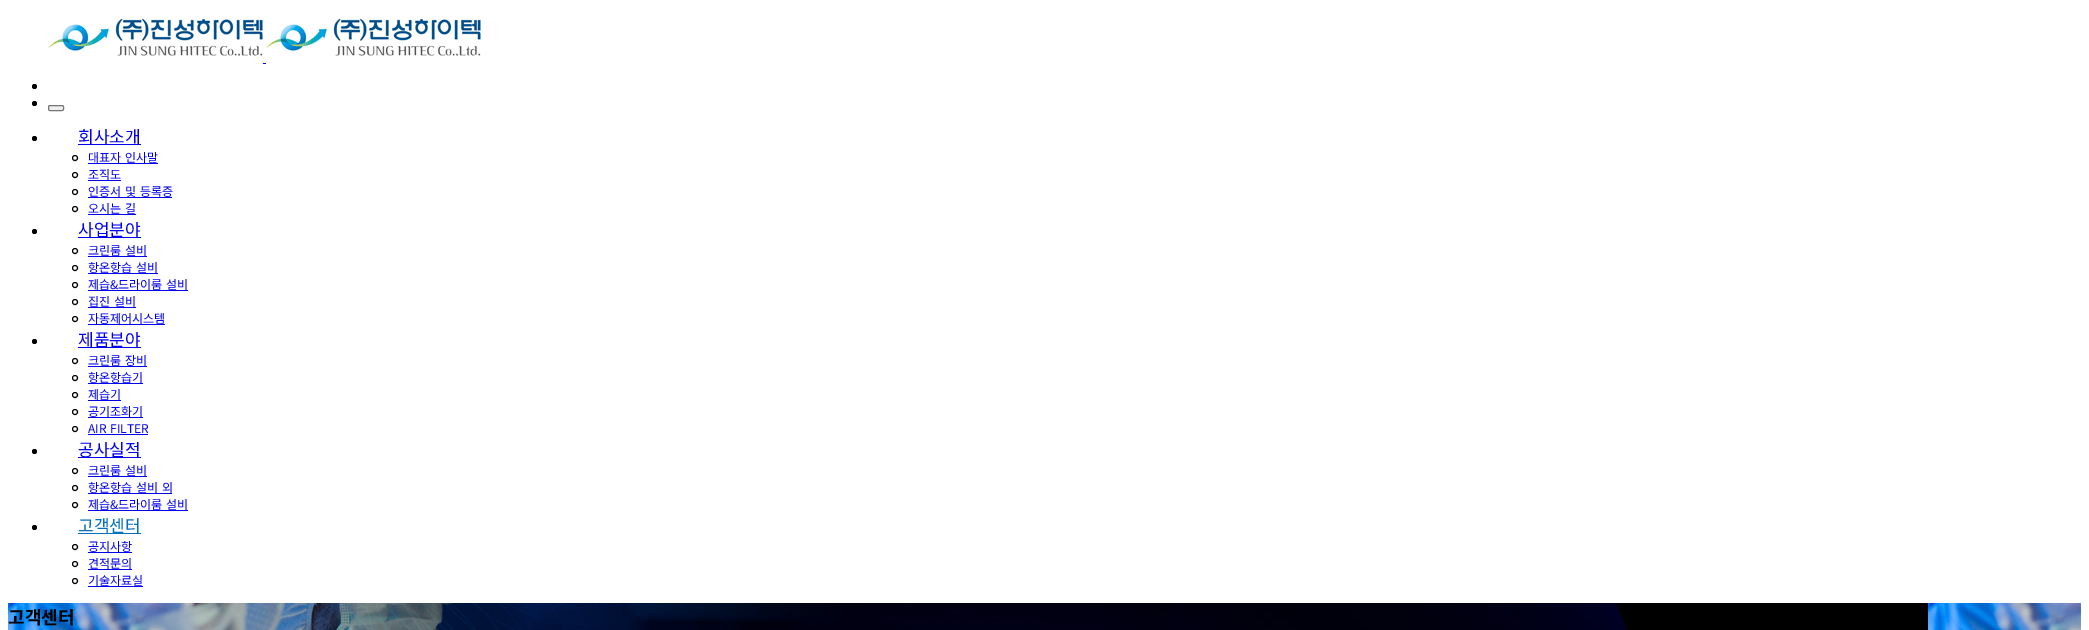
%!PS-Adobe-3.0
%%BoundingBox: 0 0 2089 630
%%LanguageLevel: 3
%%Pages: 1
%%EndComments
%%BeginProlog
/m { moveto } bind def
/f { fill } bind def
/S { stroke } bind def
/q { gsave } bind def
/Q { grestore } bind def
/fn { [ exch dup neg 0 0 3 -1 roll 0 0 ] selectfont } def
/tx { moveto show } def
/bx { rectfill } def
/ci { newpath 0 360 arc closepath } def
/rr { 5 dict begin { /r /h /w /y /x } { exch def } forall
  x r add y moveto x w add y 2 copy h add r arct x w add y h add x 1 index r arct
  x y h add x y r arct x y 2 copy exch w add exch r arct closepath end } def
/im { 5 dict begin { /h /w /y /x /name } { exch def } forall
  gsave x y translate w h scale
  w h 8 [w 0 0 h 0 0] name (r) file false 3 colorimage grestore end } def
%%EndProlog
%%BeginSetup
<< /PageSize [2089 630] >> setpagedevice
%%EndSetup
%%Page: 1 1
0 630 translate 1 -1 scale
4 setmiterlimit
1 setgray
0 0 2089 630 bx
(image0.raw) 48 18 215 38 im
(image0.raw) 266 18 215 38 im
0 0 0.933 setrgbcolor
263 63 3 1 bx
0 setgray
34.5 86.5 2.5 ci f
34.5 103.5 2.5 ci f
0.937 setgray
48.5 105.5 15 5 1.5 rr q f Q
0.463 setgray
S
0 setgray
34.5 138.5 2.5 ci f
0 0 0.933 setrgbcolor
78 144 63 1 bx
/NotoSansKR-Regular 17 fn
(회사소개) 78 143 tx
0 setgray
75 158 2.5 ci S
/NotoSansKR-Regular 12 fn
0 0 0.933 setrgbcolor
88 162 m 1 0 32 (대표자 인사말) widthshow
88 163 70 1 bx
0 setgray
75 175 2.5 ci S
0 0 0.933 setrgbcolor
(조직도) 88 179 tx
88 180 33 1 bx
0 setgray
75 192 2.5 ci S
0 0 0.933 setrgbcolor
88 196 m 1 0 32 (인증서 및 등록증) widthshow
88 197 84 1 bx
0 setgray
75 209 2.5 ci S
0 0 0.933 setrgbcolor
88 213 m 1 0 32 (오시는 길) widthshow
88 214 48 1 bx
0 setgray
34.5 231.5 2.5 ci f
0 0 0.933 setrgbcolor
78 237 63 1 bx
/NotoSansKR-Regular 17 fn
(사업분야) 78 236 tx
0 setgray
75 251 2.5 ci S
/NotoSansKR-Regular 12 fn
0 0 0.933 setrgbcolor
88 255 m 1 0 32 (크린룸 설비) widthshow
88 256 59 1 bx
0 setgray
75 268 2.5 ci S
0 0 0.933 setrgbcolor
88 272 m 1 0 32 (항온항습 설비) widthshow
88 273 70 1 bx
0 setgray
75 285 2.5 ci S
0 0 0.933 setrgbcolor
88 289 m 1 0 32 (제습&드라이룸 설비) widthshow
88 290 100 1 bx
0 setgray
75 302 2.5 ci S
0 0 0.933 setrgbcolor
88 306 m 1 0 32 (집진 설비) widthshow
88 307 48 1 bx
0 setgray
75 319 2.5 ci S
0 0 0.933 setrgbcolor
(자동제어시스템) 88 323 tx
88 324 77 1 bx
0 setgray
34.5 341.5 2.5 ci f
0 0 0.933 setrgbcolor
78 347 63 1 bx
/NotoSansKR-Regular 17 fn
(제품분야) 78 346 tx
0 setgray
75 361 2.5 ci S
/NotoSansKR-Regular 12 fn
0 0 0.933 setrgbcolor
88 365 m 1 0 32 (크린룸 장비) widthshow
88 366 59 1 bx
0 setgray
75 378 2.5 ci S
0 0 0.933 setrgbcolor
(항온항습기) 88 382 tx
88 383 55 1 bx
0 setgray
75 395 2.5 ci S
0 0 0.933 setrgbcolor
(제습기) 88 399 tx
88 400 33 1 bx
0 setgray
75 412 2.5 ci S
0 0 0.933 setrgbcolor
(공기조화기) 88 416 tx
88 417 55 1 bx
0 setgray
75 429 2.5 ci S
0 0 0.933 setrgbcolor
88 433 m 1 0 32 (AIR FILTER) widthshow
88 434 60 1 bx
0 setgray
34.5 451.5 2.5 ci f
0 0 0.933 setrgbcolor
78 457 63 1 bx
/NotoSansKR-Regular 17 fn
(공사실적) 78 456 tx
0 setgray
75 471 2.5 ci S
/NotoSansKR-Regular 12 fn
0 0 0.933 setrgbcolor
88 475 m 1 0 32 (크린룸 설비) widthshow
88 476 59 1 bx
0 setgray
75 488 2.5 ci S
0 0 0.933 setrgbcolor
88 492 m 1 0 32 (항온항습 설비 외) widthshow
88 493 84 1 bx
0 setgray
75 505 2.5 ci S
0 0 0.933 setrgbcolor
88 509 m 1 0 32 (제습&드라이룸 설비) widthshow
88 510 100 1 bx
0 setgray
34.5 527.5 2.5 ci f
0 0.439 0.749 setrgbcolor
78 533 63 1 bx
/NotoSansKR-Regular 17 fn
(고객센터) 78 532 tx
0 setgray
75 547 2.5 ci S
/NotoSansKR-Regular 12 fn
0 0 0.933 setrgbcolor
(공지사항) 88 551 tx
88 552 44 1 bx
0 setgray
75 564 2.5 ci S
0 0 0.933 setrgbcolor
(견적문의) 88 568 tx
88 569 44 1 bx
0 setgray
75 581 2.5 ci S
0 0 0.933 setrgbcolor
(기술자료실) 88 585 tx
88 586 55 1 bx
(image1.raw) 8 603 2073 27 im
/NotoSansKR-Bold 18 fn
0 setgray
(고객센터) 8 624 tx
showpage
%%EOF
